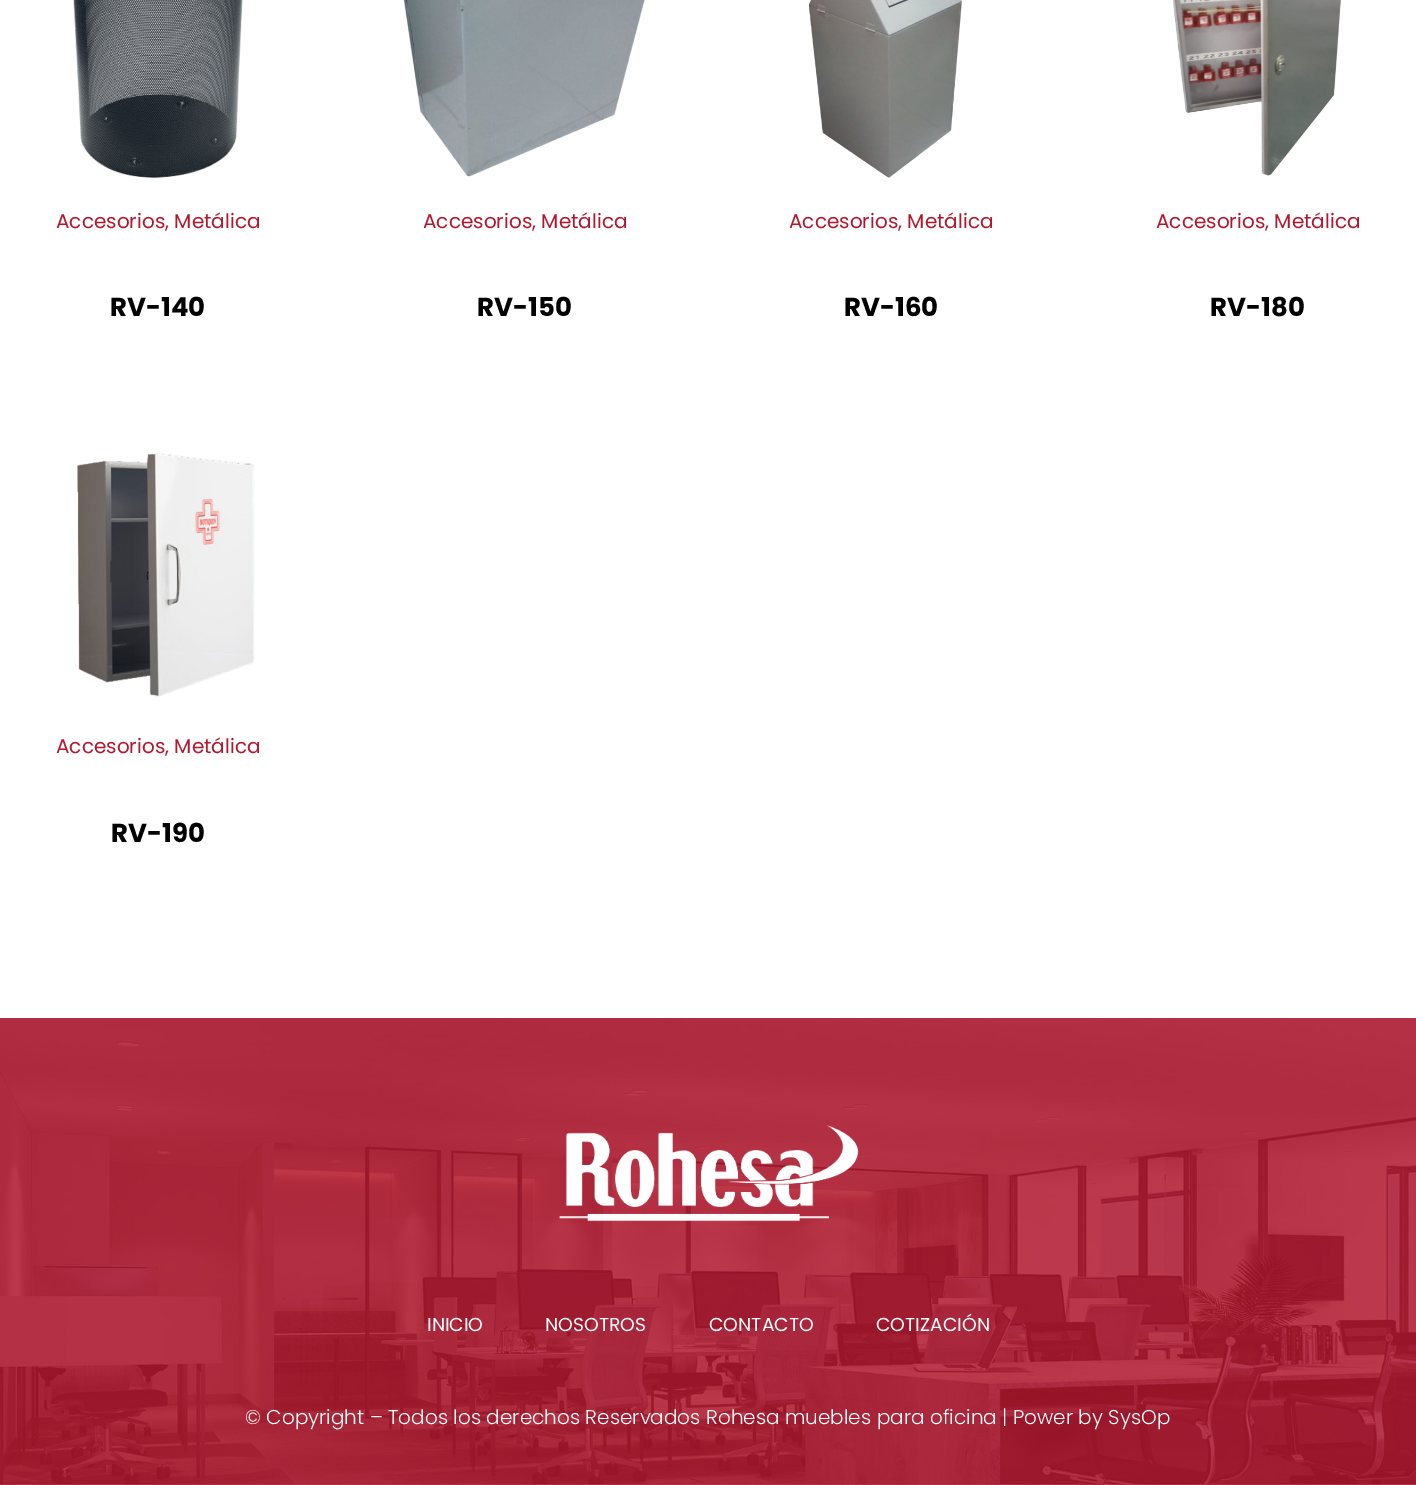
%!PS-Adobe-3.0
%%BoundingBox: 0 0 1416 1485
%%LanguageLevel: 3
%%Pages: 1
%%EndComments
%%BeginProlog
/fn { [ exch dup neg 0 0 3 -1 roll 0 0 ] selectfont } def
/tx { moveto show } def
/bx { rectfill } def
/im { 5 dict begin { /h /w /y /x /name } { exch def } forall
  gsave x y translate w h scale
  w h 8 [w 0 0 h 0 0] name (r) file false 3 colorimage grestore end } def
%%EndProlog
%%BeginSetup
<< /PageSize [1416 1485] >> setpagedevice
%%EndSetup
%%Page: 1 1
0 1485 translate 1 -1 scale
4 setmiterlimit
0.745 0.227 0.302 setrgbcolor
0 0 1416 1485 bx
1 setgray
0 0 1416 1018 bx
(image0.raw) 73 0 170 179 im
/Poppins-Regular 20 fn
0.698 0.09 0.18 setrgbcolor
(Accesorios, Metálica) 56 228 tx
/Poppins-Bold 26 fn
0 setgray
(RV-140) 110 316 tx
(image1.raw) 403 0 242 177 im
/Poppins-Regular 20 fn
0.698 0.09 0.18 setrgbcolor
(Accesorios, Metálica) 423 228 tx
/Poppins-Bold 26 fn
0 setgray
(RV-150) 477 316 tx
(image2.raw) 808 0 154 178 im
/Poppins-Regular 20 fn
0.698 0.09 0.18 setrgbcolor
(Accesorios, Metálica) 789 228 tx
/Poppins-Bold 26 fn
0 setgray
(RV-160) 844 316 tx
(image3.raw) 1172 0 169 176 im
/Poppins-Regular 20 fn
0.698 0.09 0.18 setrgbcolor
(Accesorios, Metálica) 1156 228 tx
/Poppins-Bold 26 fn
0 setgray
(RV-180) 1210 316 tx
(image4.raw) 77 453 178 244 im
/Poppins-Regular 20 fn
0.698 0.09 0.18 setrgbcolor
(Accesorios, Metálica) 56 753 tx
/Poppins-Bold 26 fn
0 setgray
(RV-190) 111 842 tx
(image5.raw) 0 1018 1416 467 im
(image6.raw) 559 1125 300 97 im
/Poppins-Regular 18.75 fn
1 setgray
(INICIO) 427 1331 tx
(NOSOTROS) 545 1331 tx
(CONTACTO) 709 1331 tx
(COTIZACIÓN) 876 1331 tx
/Poppins-Light 20 fn
(© Copyright – Todos los derechos Reservados Rohesa muebles para oficina | Power by SysOp) 245 1424 tx
showpage
%%EOF
